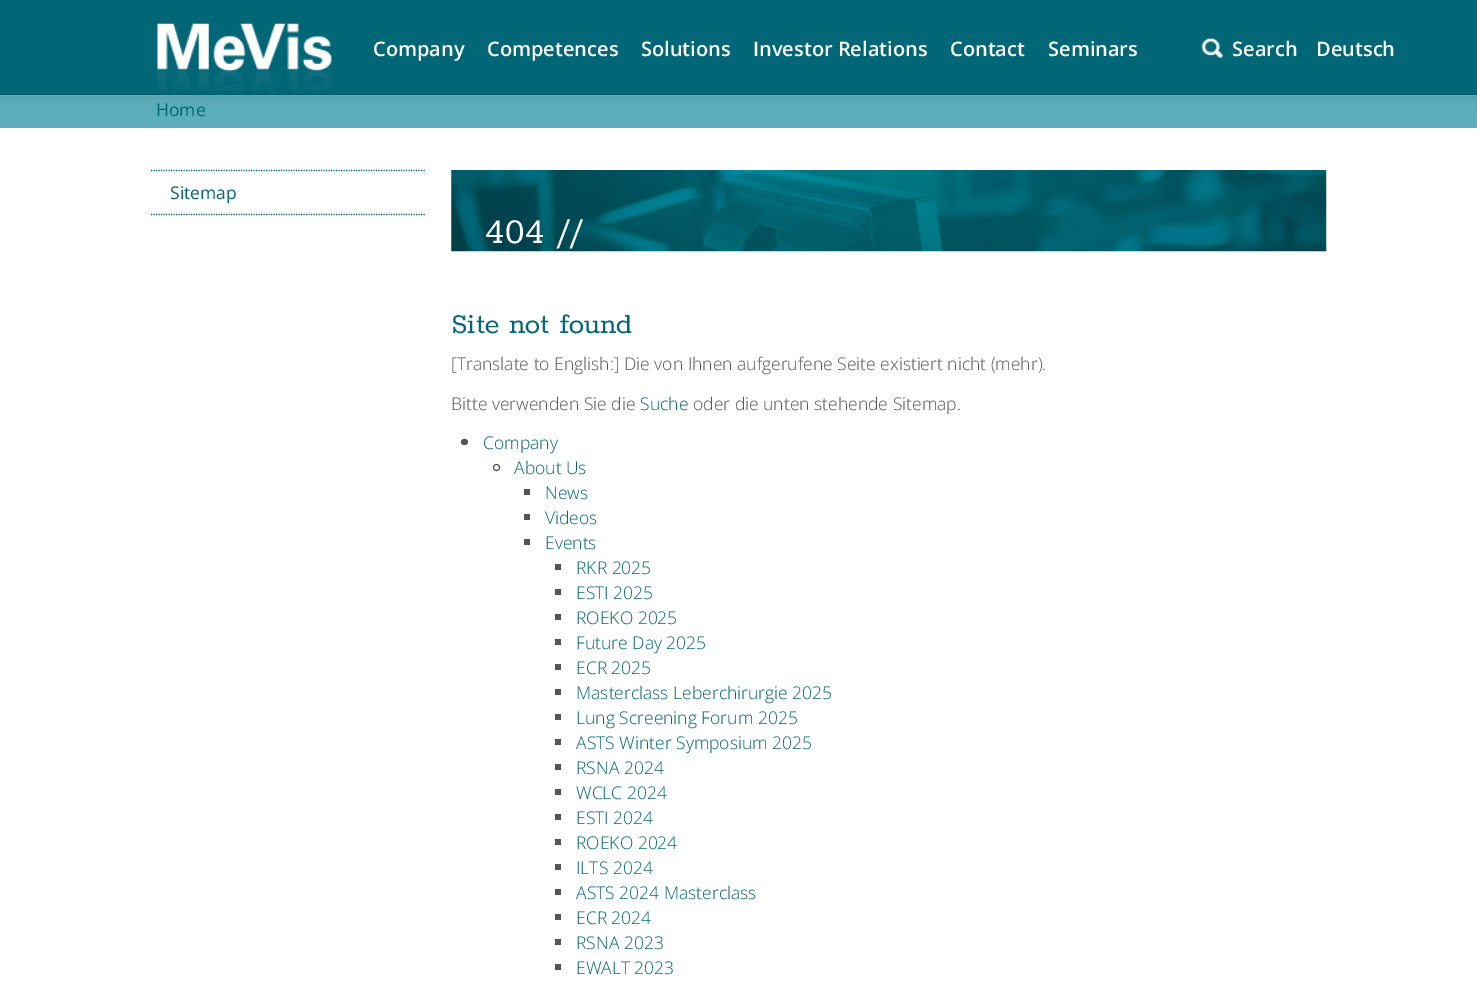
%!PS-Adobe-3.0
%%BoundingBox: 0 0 1477 988
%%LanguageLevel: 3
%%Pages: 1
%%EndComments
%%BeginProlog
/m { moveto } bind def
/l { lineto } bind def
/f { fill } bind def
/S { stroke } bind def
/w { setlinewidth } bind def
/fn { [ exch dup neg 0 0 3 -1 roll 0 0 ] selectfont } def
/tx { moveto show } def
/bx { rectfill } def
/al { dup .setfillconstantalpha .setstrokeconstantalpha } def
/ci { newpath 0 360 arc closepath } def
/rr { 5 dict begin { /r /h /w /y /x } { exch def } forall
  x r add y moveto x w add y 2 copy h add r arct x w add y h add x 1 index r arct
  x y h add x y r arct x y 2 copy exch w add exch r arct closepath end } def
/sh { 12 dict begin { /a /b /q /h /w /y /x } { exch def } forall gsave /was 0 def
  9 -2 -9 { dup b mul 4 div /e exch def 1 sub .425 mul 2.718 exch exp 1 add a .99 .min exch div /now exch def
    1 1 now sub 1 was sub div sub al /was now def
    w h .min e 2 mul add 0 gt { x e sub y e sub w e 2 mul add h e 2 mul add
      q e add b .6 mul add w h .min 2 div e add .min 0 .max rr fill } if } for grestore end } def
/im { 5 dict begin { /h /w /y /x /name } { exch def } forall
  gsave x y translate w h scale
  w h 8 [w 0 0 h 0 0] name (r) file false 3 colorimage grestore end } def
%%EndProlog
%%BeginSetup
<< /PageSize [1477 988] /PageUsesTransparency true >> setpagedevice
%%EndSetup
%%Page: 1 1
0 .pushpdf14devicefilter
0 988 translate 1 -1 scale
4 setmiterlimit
1 setgray
0 0 1477 988 bx
0.361 0.682 0.737 setrgbcolor
0 96 1477 32 bx
0 setgray
0 1 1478 97 0 6 0.1 sh
0.004 0.404 0.463 setrgbcolor
0 0 1477 94 bx
0.004 0.365 0.416 setrgbcolor
0 94 1477 1 bx
0.361 0.682 0.737 setrgbcolor
0 95 1477 1 bx
(image0.raw) 154 16 180 79 im
/OpenSans-SemiBold 20 fn
1 setgray
(Company) 373 56 tx
(Competences) 487 56 tx
(Solutions) 641 56 tx
(Investor Relations) 753 56 tx
(Contact) 950 56 tx
(Seminars) 1048 56 tx
(image1.raw) 1201 38 22 20 im
(Search) 1232 56 tx
(Deutsch) 1316 56 tx
/OpenSans-Regular 17.5 fn
0.004 0.4 0.463 setrgbcolor
(Home) 156 116 tx
1.2 w
[1.25 1.25] 0 setdash
151 214.5 m 426 214.5 l S
151 170.5 m 426 170.5 l S
(Sitemap) 170 199 tx
(image2.raw) 451 170 876 82 im
/Rokkitt-Regular 40 fn
1 setgray
(404 //) 486 243 tx
/Rokkitt-Regular 31.25 fn
0.004 0.4 0.463 setrgbcolor
(Site not found) 451 333 tx
/OpenSans-Light 17.5 fn
0.333 setgray
([Translate to English:] Die von Ihnen aufgerufene Seite existiert nicht \(mehr\).) 451 370 tx
(Bitte verwenden Sie die) 451 410 tx
0.004 0.4 0.463 setrgbcolor
(Suche) 640 410 tx
0.333 setgray
(oder die unten stehende Sitemap.) 693 410 tx
461 439 7 6 3 rr f
0.004 0.4 0.463 setrgbcolor
(Company) 483 449 tx
0.333 setgray
1 w
[] 0 setdash
496.5 467.5 3 ci S
0.004 0.4 0.463 setrgbcolor
(About Us) 514 474 tx
0.333 setgray
524 489 6 6 bx
0.004 0.4 0.463 setrgbcolor
(News) 545 499 tx
0.333 setgray
524 514 6 6 bx
0.004 0.4 0.463 setrgbcolor
(Videos) 545 524 tx
0.333 setgray
524 539 6 6 bx
0.004 0.4 0.463 setrgbcolor
(Events) 545 549 tx
0.333 setgray
555 564 6 6 bx
0.004 0.4 0.463 setrgbcolor
(RKR 2025) 576 574 tx
0.333 setgray
555 589 6 6 bx
0.004 0.4 0.463 setrgbcolor
(ESTI 2025) 576 599 tx
0.333 setgray
555 614 6 6 bx
0.004 0.4 0.463 setrgbcolor
(ROEKO 2025) 576 624 tx
0.333 setgray
555 639 6 6 bx
0.004 0.4 0.463 setrgbcolor
(Future Day 2025) 576 649 tx
0.333 setgray
555 664 6 6 bx
0.004 0.4 0.463 setrgbcolor
(ECR 2025) 576 674 tx
0.333 setgray
555 689 6 6 bx
0.004 0.4 0.463 setrgbcolor
(Masterclass Leberchirurgie 2025) 576 699 tx
0.333 setgray
555 714 6 6 bx
0.004 0.4 0.463 setrgbcolor
(Lung Screening Forum 2025) 576 724 tx
0.333 setgray
555 739 6 6 bx
0.004 0.4 0.463 setrgbcolor
(ASTS Winter Symposium 2025) 576 749 tx
0.333 setgray
555 764 6 6 bx
0.004 0.4 0.463 setrgbcolor
(RSNA 2024) 576 774 tx
0.333 setgray
555 789 6 6 bx
0.004 0.4 0.463 setrgbcolor
(WCLC 2024) 576 799 tx
0.333 setgray
555 814 6 6 bx
0.004 0.4 0.463 setrgbcolor
(ESTI 2024) 576 824 tx
0.333 setgray
555 839 6 6 bx
0.004 0.4 0.463 setrgbcolor
(ROEKO 2024) 576 849 tx
0.333 setgray
555 864 6 6 bx
0.004 0.4 0.463 setrgbcolor
(ILTS 2024) 576 874 tx
0.333 setgray
555 889 6 6 bx
0.004 0.4 0.463 setrgbcolor
(ASTS 2024 Masterclass) 576 899 tx
0.333 setgray
555 914 6 6 bx
0.004 0.4 0.463 setrgbcolor
(ECR 2024) 576 924 tx
0.333 setgray
555 939 6 6 bx
0.004 0.4 0.463 setrgbcolor
(RSNA 2023) 576 949 tx
0.333 setgray
555 964 6 6 bx
0.004 0.4 0.463 setrgbcolor
(EWALT 2023) 576 974 tx
.poppdf14devicefilter showpage
%%EOF
